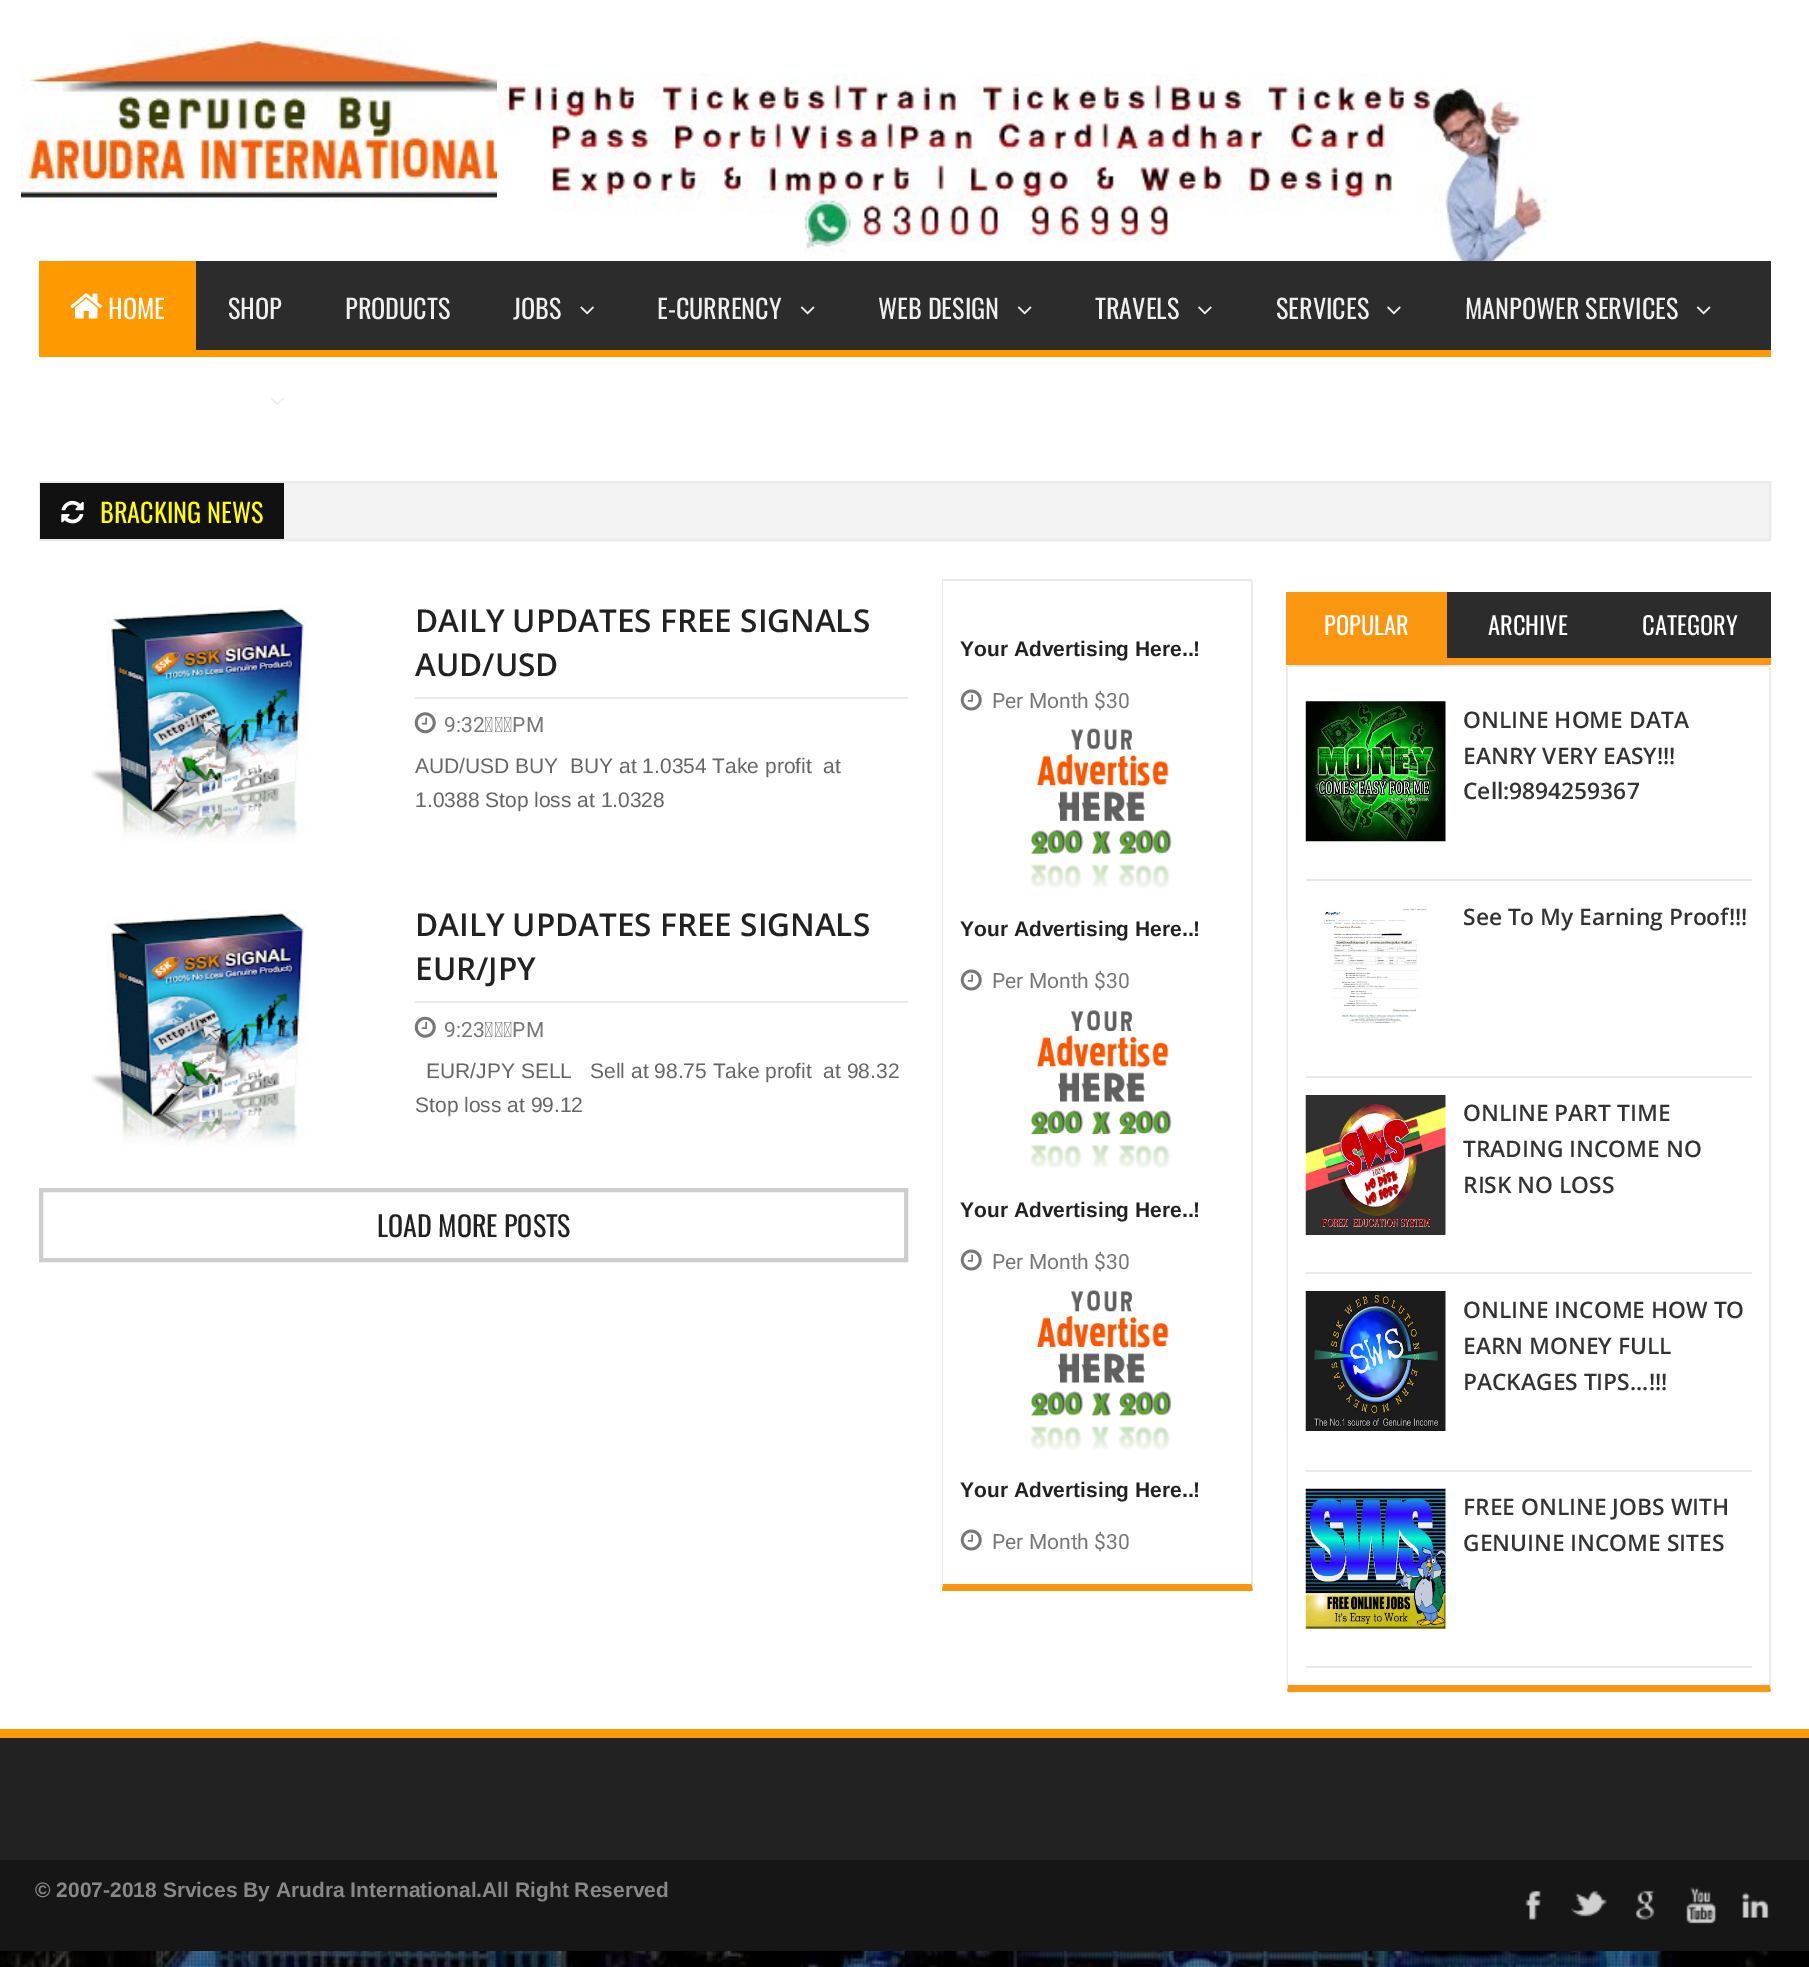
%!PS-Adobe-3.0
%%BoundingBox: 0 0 1809 1967
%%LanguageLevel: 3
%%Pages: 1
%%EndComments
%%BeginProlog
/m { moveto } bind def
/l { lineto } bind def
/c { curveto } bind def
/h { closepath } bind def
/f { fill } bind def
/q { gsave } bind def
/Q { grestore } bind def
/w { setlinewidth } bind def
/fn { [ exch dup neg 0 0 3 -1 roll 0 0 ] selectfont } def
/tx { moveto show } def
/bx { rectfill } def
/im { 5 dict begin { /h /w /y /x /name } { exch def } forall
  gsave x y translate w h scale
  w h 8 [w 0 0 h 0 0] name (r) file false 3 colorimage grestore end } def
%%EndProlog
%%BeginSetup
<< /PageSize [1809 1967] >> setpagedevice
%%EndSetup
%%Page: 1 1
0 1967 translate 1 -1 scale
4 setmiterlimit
1 setgray
0 0 1809 1967 bx
(image0.raw) 0 1951 1809 16 im
(image1.raw) 21 36 476 167 im
(image2.raw) 497 73 1050 188 im
0.173 setgray
196 261 1575 89 bx
1 0.6 0 setrgbcolor
39 350 1732 7 bx
39 261 157 89 bx
(image3.raw) 70 293 32 26 im
/Oswald-Regular 26.25 fn
1 setgray
(HOME) 108 319 tx
0.937 setgray
(SHOP) 228 319 tx
(PRODUCTS) 345 319 tx
(JOBS) 513 319 tx
(image4.raw) 580 306 14 9 im
(E-CURRENCY) 657 319 tx
(image5.raw) 800 306 15 9 im
(WEB DESIGN) 878 319 tx
(image5.raw) 1017 306 15 9 im
(TRAVELS) 1095 319 tx
(image6.raw) 1198 306 14 9 im
(SERVICES) 1276 319 tx
(image6.raw) 1387 306 14 9 im
(MANPOWER SERVICES) 1465 319 tx
(image5.raw) 1696 306 15 9 im
(image7.raw) 270 397 14 8 im
0.953 setgray
284 483 1485 56 bx
0.918 setgray
2 w
40 482 1730 58 rectstroke
0.067 setgray
40 483 244 56 bx
(image8.raw) 61 500 23 24 im
1 1 0 setrgbcolor
(BRACKING NEWS) 100 523 tx
(image9.raw) 91 606 217 236 im
0.918 setgray
415 697 493 2 bx
/OpenSans-SemiBold 31.5 fn
0.133 setgray
(DAILY UPDATES FREE SIGNALS) 415 632 tx
(AUD/USD) 415 676 tx
(image10.raw) 414 712 22 22 im
/Roboto-Regular 21 fn
0.467 setgray
(9:32 PM) 444 732 tx
/LiberationSans-Regular 21 fn
0.4 setgray
(AUD/USD BUY) 415 773 tx
(BUY at 1.0354 Take profit  at) 570 773 tx
(1.0388 Stop loss at 1.0328) 415 807 tx
(image11.raw) 91 911 217 235 im
0.918 setgray
415 1001 493 2 bx
/OpenSans-SemiBold 31.5 fn
0.133 setgray
(DAILY UPDATES FREE SIGNALS) 415 936 tx
(EUR/JPY) 415 980 tx
(image12.raw) 414 1016 22 22 im
/Roboto-Regular 21 fn
0.467 setgray
(9:23 PM) 444 1037 tx
/LiberationSans-Regular 21 fn
0.4 setgray
(EUR/JPY SELL) 426 1078 tx
(Sell at 98.75 Take profit  at 98.32) 590 1078 tx
(Stop loss at 99.12) 415 1112 tx
0.804 setgray
4 w
41 1190 865 70 rectstroke
/Oswald-Regular 28 fn
0.133 setgray
(LOAD MORE POSTS) 377 1237 tx
0.918 setgray
942 580 m 942 579 l 1252 579 l 1252 580 l 1251 581 l 943 581 l h f
1253 1589 m 1253 581 l 1252 580 l 1251 581 l 1251 1583 l 1253 1590 l h f
q
942 579 311 1040 rectclip
0.984 0.588 0.067 setrgbcolor
942 1591 m 941 1589 943 1585 943 1584 c 1251 1584 l 1251 1583 l 1253 1590 l 1252 1591 l h f
Q
943 581 m 943 1584 l 942 1589 l 942 580 l h f
/LiberationSans-Bold 21 fn
0.133 setgray
(Your Advertising Here..!) 960 656 tx
(image13.raw) 960 689 22 22 im
/Roboto-Regular 21 fn
0.467 setgray
(Per Month $30) 992 708 tx
(image14.raw) 1030 728 142 160 im
/LiberationSans-Bold 21 fn
0.133 setgray
(Your Advertising Here..!) 960 936 tx
(image13.raw) 960 969 22 22 im
/Roboto-Regular 21 fn
0.467 setgray
(Per Month $30) 992 988 tx
(image15.raw) 1030 1010 142 158 im
/LiberationSans-Bold 21 fn
0.133 setgray
(Your Advertising Here..!) 960 1217 tx
(image13.raw) 960 1249 22 22 im
/Roboto-Regular 21 fn
0.467 setgray
(Per Month $30) 992 1269 tx
(image16.raw) 1030 1290 142 160 im
/LiberationSans-Bold 21 fn
0.133 setgray
(Your Advertising Here..!) 960 1497 tx
(image13.raw) 960 1529 22 22 im
/Roboto-Regular 21 fn
0.467 setgray
(Per Month $30) 992 1549 tx
0.984 0.588 0.067 setrgbcolor
1286 658 485 7 bx
1286 592 161 66 bx
/Oswald-Regular 24.5 fn
1 setgray
(POPULAR) 1324 635 tx
0.173 setgray
1447 592 324 66 bx
1 setgray
(ARCHIVE) 1488 635 tx
(CATEGORY) 1642 635 tx
0.918 setgray
1288 665 m 1287 666 l 1288 667 l 1769 667 l 1770 666 l 1769 665 l h f
1771 1690 m 1771 667 l 1770 666 l 1769 667 l 1769 1684 l 1771 1691 l h f
0.984 0.588 0.067 setrgbcolor
1771 1691 m 1769 1692 l 1288 1692 l 1287 1691 l 1288 1685 l 1769 1685 l 1769 1684 l h f
0.918 setgray
1288 667 m 1288 1685 l 1287 1691 l 1286 666 l 1287 666 l h f
0.914 setgray
1306 879 446 2 bx
(image17.raw) 1305 701 141 141 im
/OpenSans-SemiBold 22.75 fn
0.2 setgray
(ONLINE HOME DATA) 1463 728 tx
(EANRY VERY EASY!!!) 1463 764 tx
(Cell:9894259367) 1463 799 tx
0.914 setgray
1306 1076 446 2 bx
(image18.raw) 1324 908 103 116 im
0.2 setgray
(See To My Earning Proof!!!) 1463 925 tx
0.914 setgray
1306 1272 446 2 bx
(image19.raw) 1305 1095 141 140 im
0.2 setgray
(ONLINE PART TIME) 1463 1121 tx
(TRADING INCOME NO) 1463 1157 tx
(RISK NO LOSS) 1463 1193 tx
0.914 setgray
1306 1470 446 2 bx
(image20.raw) 1305 1291 141 140 im
0.2 setgray
(ONLINE INCOME HOW TO) 1463 1318 tx
(EARN MONEY FULL) 1463 1354 tx
(PACKAGES TIPS...!!!) 1463 1390 tx
0.914 setgray
1306 1666 446 2 bx
(image21.raw) 1305 1488 141 141 im
0.2 setgray
(FREE ONLINE JOBS WITH) 1463 1515 tx
(GENUINE INCOME SITES) 1463 1551 tx
0.133 setgray
0 1738 1809 122 bx
1 0.6 0 setrgbcolor
0 1729 1809 9 bx
0.086 setgray
0 1860 1809 91 bx
/LiberationSans-Bold 21 fn
0.533 setgray
(© 2007-2018 Srvices By Arudra International.All Right Reserved) 35 1897 tx
(image22.raw) 1525 1890 16 30 im
(image23.raw) 1571 1890 36 27 im
(image24.raw) 1635 1890 20 30 im
(image25.raw) 1686 1887 31 37 im
(image26.raw) 1741 1892 29 26 im
(image27.raw) 0 1951 1809 16 im
showpage
%%EOF
